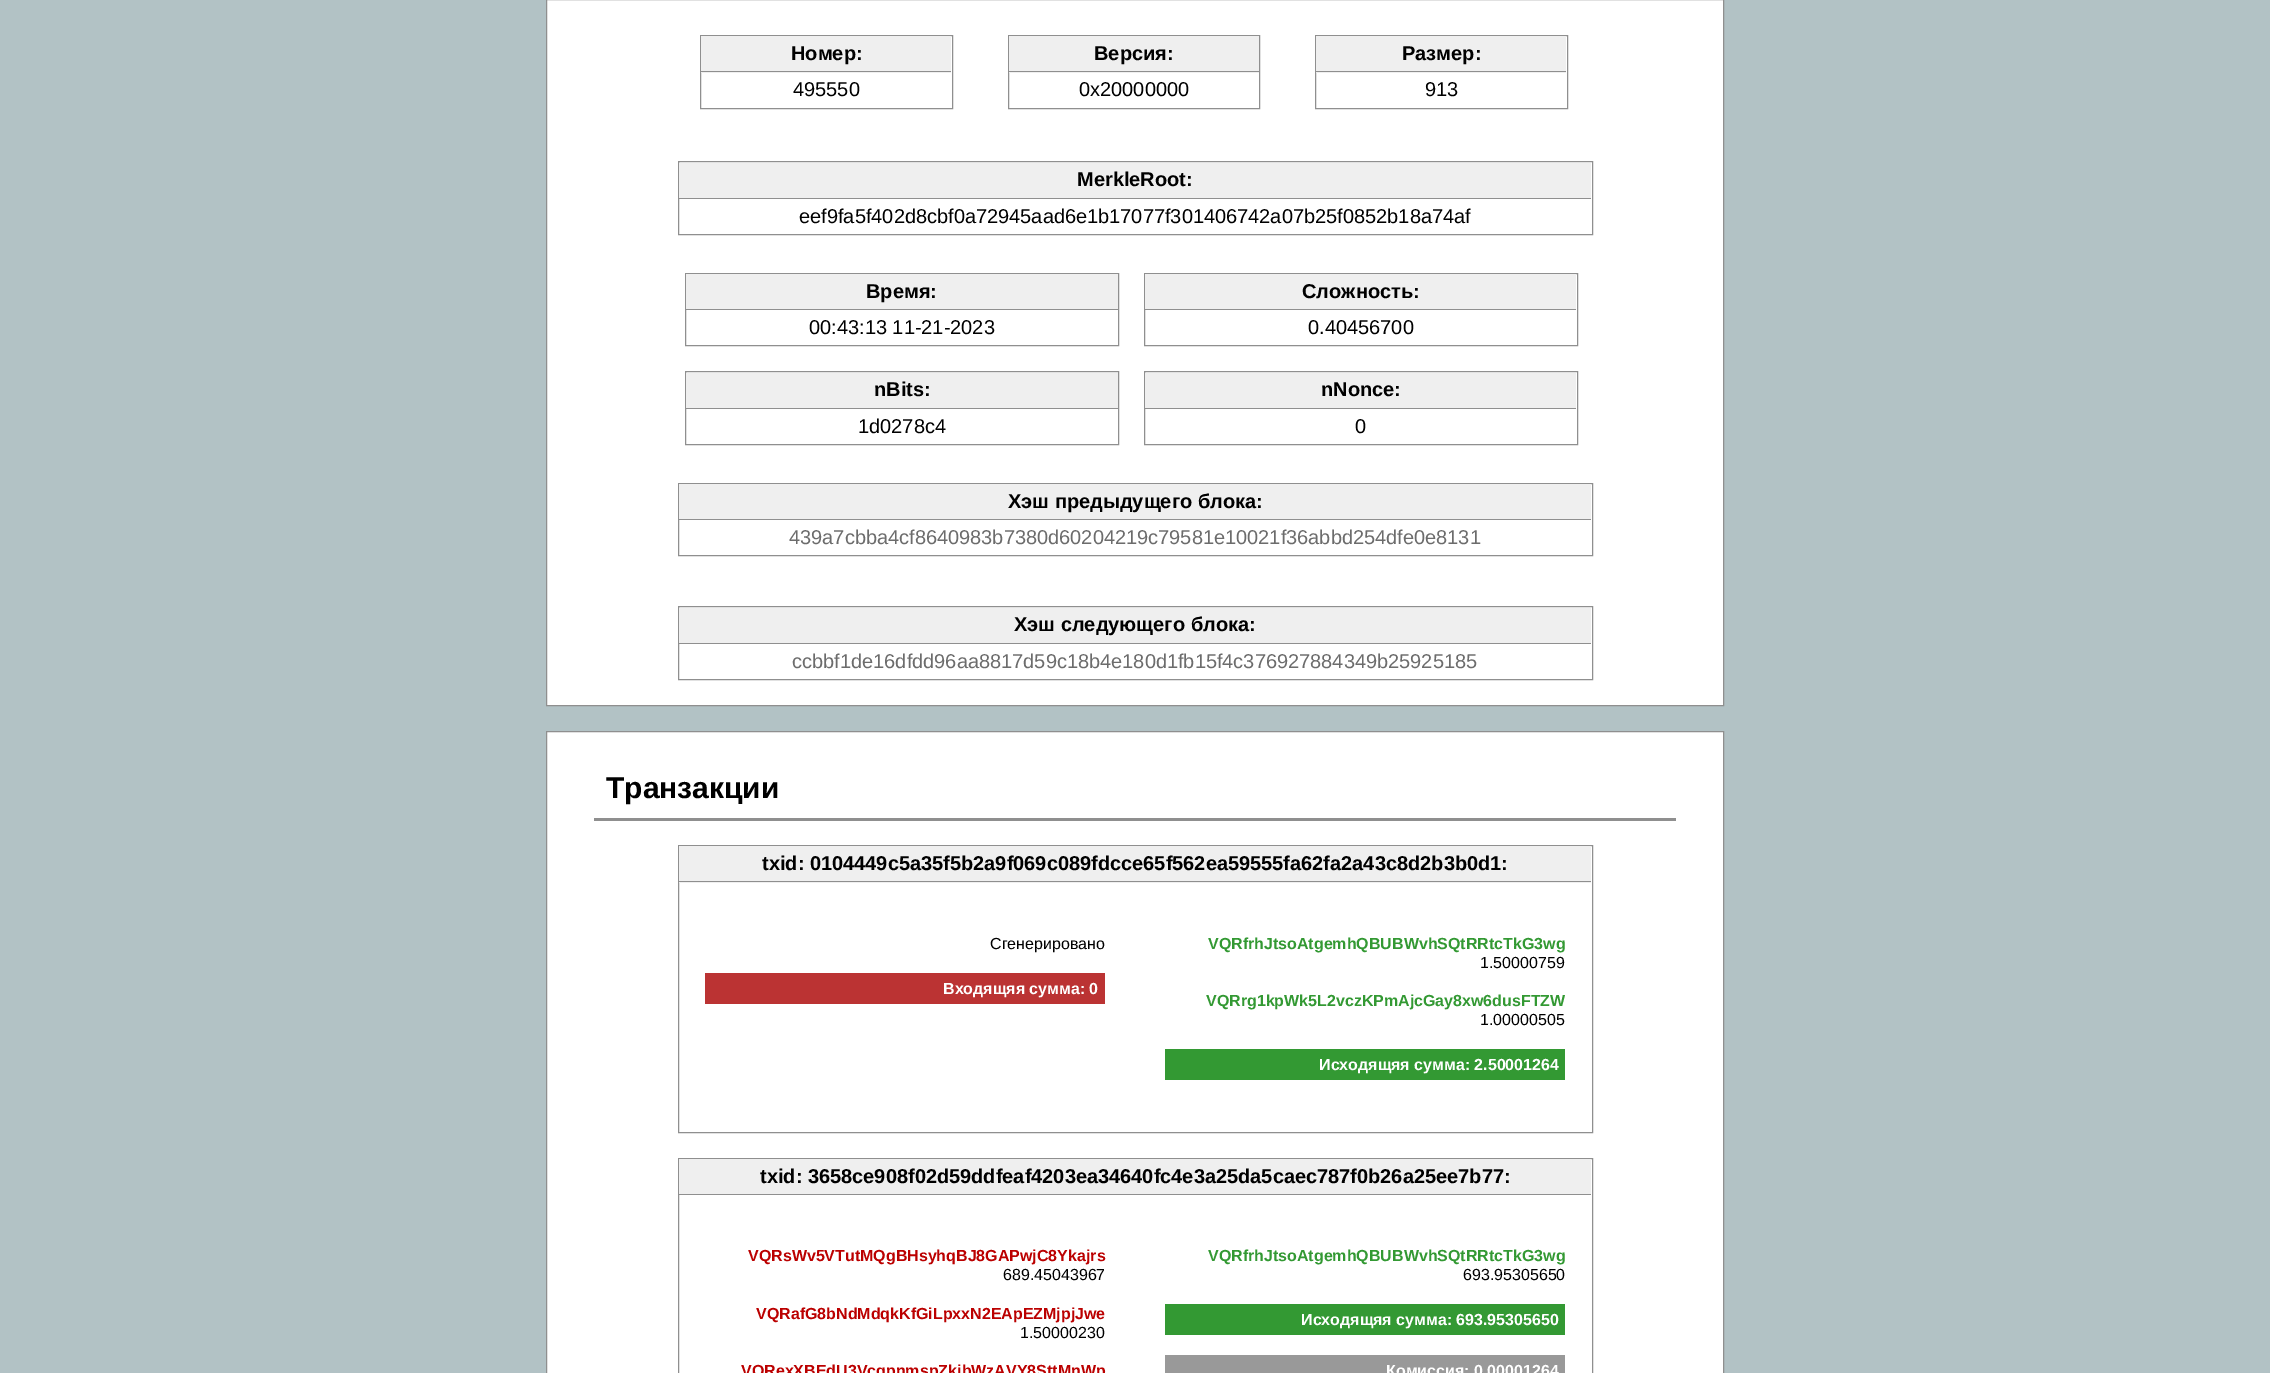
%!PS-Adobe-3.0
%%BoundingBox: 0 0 2270 1373
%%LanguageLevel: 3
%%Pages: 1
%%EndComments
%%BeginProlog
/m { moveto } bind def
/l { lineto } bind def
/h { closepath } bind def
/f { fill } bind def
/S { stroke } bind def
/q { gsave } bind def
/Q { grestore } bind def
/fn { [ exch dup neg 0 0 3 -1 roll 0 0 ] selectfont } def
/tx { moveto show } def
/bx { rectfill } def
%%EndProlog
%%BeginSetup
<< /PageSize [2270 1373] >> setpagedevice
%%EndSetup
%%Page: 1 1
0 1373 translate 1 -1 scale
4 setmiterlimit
0.698 0.761 0.773 setrgbcolor
0 0 2270 1373 bx
1 setgray
546.5 -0.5 m 1723.5 -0.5 l 1723.5 705.5 l 546.5 705.5 l h q f Q
0.561 setgray
S
700.5 35.5 252 73 rectstroke
0.937 setgray
701 36 250 37 bx
0.561 setgray
701 71 250 1 bx
/LiberationSans-Bold 20 fn
0 setgray
(Номер:) 791 60 tx
/LiberationSans-Regular 20 fn
(495550) 793 96 tx
0.561 setgray
1008.5 35.5 251 73 rectstroke
0.937 setgray
1009 36 250 37 bx
0.561 setgray
1009 71 250 1 bx
/LiberationSans-Bold 20 fn
0 setgray
(Версия:) 1094 60 tx
/LiberationSans-Regular 20 fn
(0x20000000) 1079 96 tx
0.561 setgray
1315.5 35.5 252 73 rectstroke
0.937 setgray
1316 36 250 37 bx
0.561 setgray
1316 71 250 1 bx
/LiberationSans-Bold 20 fn
0 setgray
(Размер:) 1402 60 tx
/LiberationSans-Regular 20 fn
(913) 1425 96 tx
0.561 setgray
678.5 161.5 914 73 rectstroke
0.937 setgray
679 163 912 35 bx
0.561 setgray
679 198 912 1 bx
/LiberationSans-Bold 20 fn
0 setgray
(MerkleRoot:) 1077 186 tx
/LiberationSans-Regular 20 fn
(eef9fa5f402d8cbf0a72945aad6e1b17077f301406742a07b25f0852b18a74af) 799 223 tx
0.561 setgray
685.5 273.5 433 72 rectstroke
0.937 setgray
686 274 432 35 bx
0.561 setgray
686 309 432 1 bx
/LiberationSans-Bold 20 fn
0 setgray
(Время:) 866 298 tx
/LiberationSans-Regular 20 fn
(00:43:13 11-21-2023) 809 334 tx
0.561 setgray
1144.5 273.5 433 72 rectstroke
0.937 setgray
1145 274 431 35 bx
0.561 setgray
1145 309 431 1 bx
/LiberationSans-Bold 20 fn
0 setgray
(Сложность:) 1302 298 tx
/LiberationSans-Regular 20 fn
(0.40456700) 1308 334 tx
0.561 setgray
685.5 371.5 433 73 rectstroke
0.937 setgray
686 373 432 35 bx
0.561 setgray
686 408 432 1 bx
/LiberationSans-Bold 20 fn
0 setgray
(nBits:) 874 396 tx
/LiberationSans-Regular 20 fn
(1d0278c4) 858 433 tx
0.561 setgray
1144.5 371.5 433 73 rectstroke
0.937 setgray
1145 373 431 35 bx
0.561 setgray
1145 408 431 1 bx
/LiberationSans-Bold 20 fn
0 setgray
(nNonce:) 1321 396 tx
/LiberationSans-Regular 20 fn
(0) 1355 433 tx
0.561 setgray
678.5 483.5 914 72 rectstroke
0.937 setgray
679 484 912 35 bx
0.561 setgray
679 519 912 1 bx
/LiberationSans-Bold 20 fn
0 setgray
(Хэш предыдущего блока:) 1008 508 tx
/LiberationSans-Regular 20 fn
0.424 setgray
(439a7cbba4cf8640983b7380d60204219c79581e10021f36abbd254dfe0e8131) 789 544 tx
0.561 setgray
678.5 606.5 914 73 rectstroke
0.937 setgray
679 608 912 35 bx
0.561 setgray
679 643 912 1 bx
/LiberationSans-Bold 20 fn
0 setgray
(Хэш следующего блока:) 1014 631 tx
/LiberationSans-Regular 20 fn
0.424 setgray
(ccbbf1de16dfdd96aa8817d59c18b4e180d1fb15f4c376927884349b25925185) 792 668 tx
1 setgray
546.5 731.5 m 1723.5 731.5 l 1723.5 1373.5 l 546.5 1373.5 l h q f Q
0.561 setgray
S
594 818 1082 3 bx
/LiberationSans-Bold 30 fn
0 setgray
(Транзакции) 606 798 tx
0.561 setgray
678.5 845.5 914 287 rectstroke
0.937 setgray
679 846 912 37 bx
0.561 setgray
679 881 912 1 bx
/LiberationSans-Bold 20 fn
0 setgray
(txid: 0104449c5a35f5b2a9f069c089fdcce65f562ea59555fa62fa2a43c8d2b3b0d1:) 762 870 tx
/LiberationSans-Regular 16 fn
(Сгенерировано) 990 949 tx
0.733 0.2 0.2 setrgbcolor
705 973 400 31 bx
/LiberationSans-Bold 16 fn
1 setgray
(Входящяя сумма: 0) 943 994 tx
0.2 0.6 0.2 setrgbcolor
(VQRfrhJtsoAtgemhQBUBWvhSQtRRtcTkG3wg) 1208 949 tx
/LiberationSans-Regular 16 fn
0 setgray
(1.50000759) 1480 968 tx
/LiberationSans-Bold 16 fn
0.2 0.6 0.2 setrgbcolor
(VQRrg1kpWk5L2vczKPmAjcGay8xw6dusFTZW) 1206 1006 tx
/LiberationSans-Regular 16 fn
0 setgray
(1.00000505) 1480 1025 tx
0.2 0.6 0.2 setrgbcolor
1165 1049 400 31 bx
/LiberationSans-Bold 16 fn
1 setgray
(Исходящяя сумма: 2.50001264) 1319 1070 tx
0.561 setgray
678.5 1158.5 914 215 rectstroke
0.937 setgray
679 1159 912 35 bx
0.561 setgray
679 1194 912 1 bx
/LiberationSans-Bold 20 fn
0 setgray
(txid: 3658ce908f02d59ddfeaf4203ea34640fc4e3a25da5caec787f0b26a25ee7b77:) 760 1183 tx
/LiberationSans-Bold 16 fn
0.733 0 0 setrgbcolor
(VQRsWv5VTutMQgBHsyhqBJ8GAPwjC8Ykajrs) 748 1261 tx
/LiberationSans-Regular 16 fn
0 setgray
(689.45043967) 1003 1280 tx
/LiberationSans-Bold 16 fn
0.733 0 0 setrgbcolor
(VQRafG8bNdMdqkKfGiLpxxN2EApEZMjpjJwe) 756 1319 tx
/LiberationSans-Regular 16 fn
0 setgray
(1.50000230) 1020 1338 tx
/LiberationSans-Bold 16 fn
0.733 0 0 setrgbcolor
(VQRexXBEdU3VcgpnmspZkjbWzAVY8SttMnWp) 741 1376 tx
0.2 0.6 0.2 setrgbcolor
(VQRfrhJtsoAtgemhQBUBWvhSQtRRtcTkG3wg) 1208 1261 tx
/LiberationSans-Regular 16 fn
0 setgray
(693.95305650) 1463 1280 tx
0.2 0.6 0.2 setrgbcolor
1165 1304 400 31 bx
/LiberationSans-Bold 16 fn
1 setgray
(Исходящяя сумма: 693.95305650) 1301 1325 tx
0.6 setgray
1165 1355 400 18 bx
1 setgray
(Комиссия: 0.00001264) 1386 1376 tx
showpage
%%EOF
